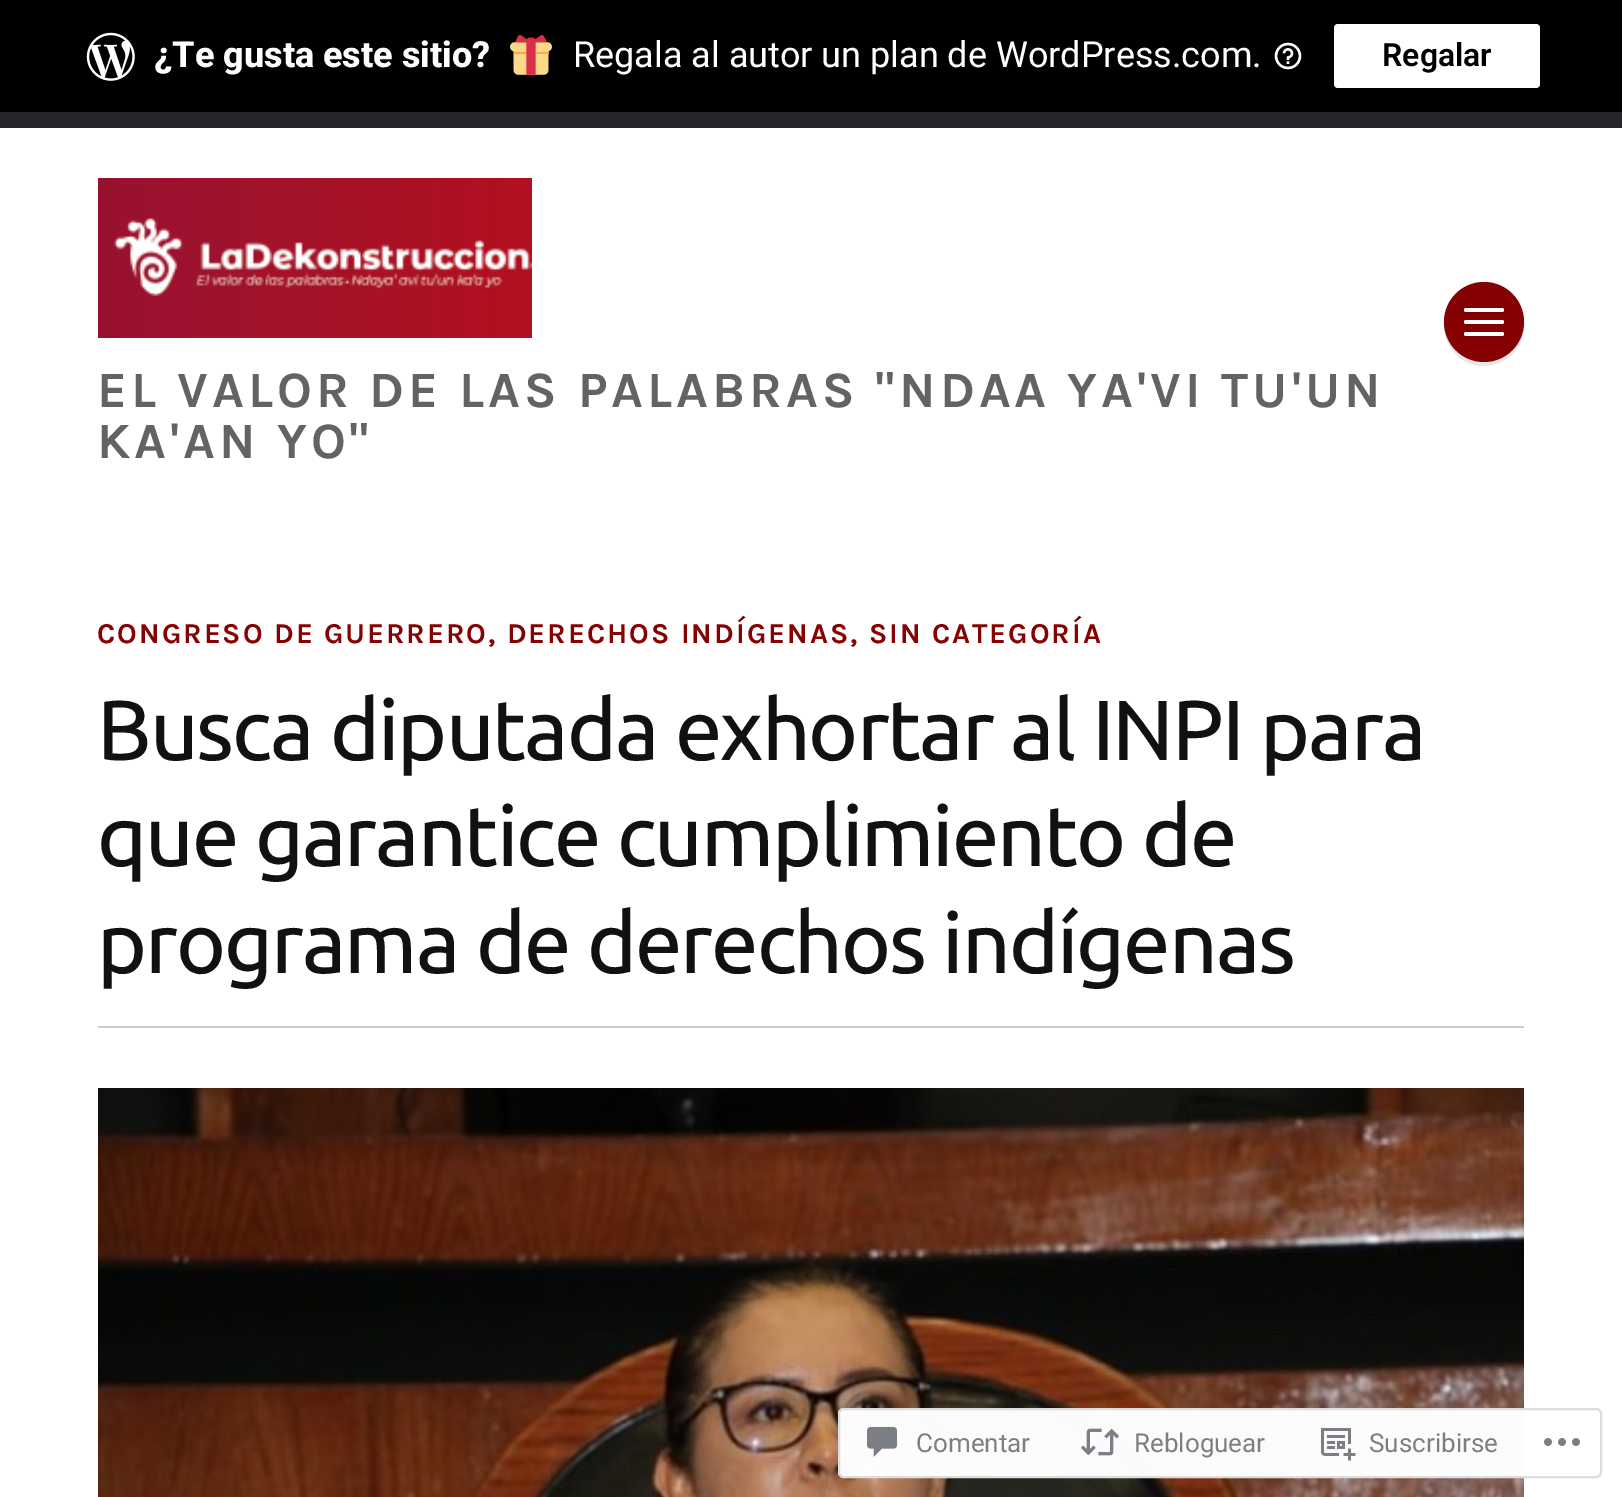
%!PS-Adobe-3.0
%%BoundingBox: 0 0 1622 1497
%%LanguageLevel: 3
%%Pages: 1
%%EndComments
%%BeginProlog
/m { moveto } bind def
/l { lineto } bind def
/c { curveto } bind def
/h { closepath } bind def
/f { fill } bind def
/S { stroke } bind def
/w { setlinewidth } bind def
/fn { [ exch dup neg 0 0 3 -1 roll 0 0 ] selectfont } def
/tx { moveto show } def
/bx { rectfill } def
/al { dup .setfillconstantalpha .setstrokeconstantalpha } def
/ci { newpath 0 360 arc closepath } def
/rr { 5 dict begin { /r /h /w /y /x } { exch def } forall
  x r add y moveto x w add y 2 copy h add r arct x w add y h add x 1 index r arct
  x y h add x y r arct x y 2 copy exch w add exch r arct closepath end } def
/im { 5 dict begin { /h /w /y /x /name } { exch def } forall
  gsave x y translate w h scale
  w h 8 [w 0 0 h 0 0] name (r) file false 3 colorimage grestore end } def
%%EndProlog
%%BeginSetup
<< /PageSize [1622 1497] /PageUsesTransparency true >> setpagedevice
%%EndSetup
%%Page: 1 1
0 .pushpdf14devicefilter
0 1497 translate 1 -1 scale
4 setmiterlimit
1 setgray
0 0 1622 1497 bx
0 setgray
0 0 1622 112 bx
(image0.raw) 86 32 49 49 im
/Roboto-ExtraBold 36 fn
1 setgray
(¿Te gusta este sitio?) 154 67 tx
(image1.raw) 510 35 42 40 im
/Roboto-Regular 36 fn
(Regala al autor un plan de WordPress.com.) 573 67 tx
(image2.raw) 1274 42 28 28 im
1334 24 206 64 4 rr f
/Roboto-SemiBold 32 fn
0 setgray
(Regalar) 1382 66 tx
0.149 0.153 0.169 setrgbcolor
0 112 1622 16 bx
(image3.raw) 98 178 434 160 im
0.902 setgray
1524 324 m 1523 345 1505 362 1484 362 c 1463 362 1445 345 1444 324 c 1444 333 1446 341 1451 348 c 1473 382 1526 364 1524 324 c h f
0.525 0.008 0.008 setrgbcolor
1484 322 40 ci f
0.475 0.008 0.008 setrgbcolor
1464 311 m 1462 314 1468 314 1472 314 c 1496 314 l 1500 314 1506 314 1504 311 c 1502 312 l 1466 312 l h f
1 setgray
1464 308 40 4 2 rr f
0.475 0.008 0.008 setrgbcolor
1464 323 m 1462 326 1468 326 1472 326 c 1496 326 l 1500 326 1506 326 1504 323 c 1502 324 l 1466 324 l h f
1 setgray
1464 320 40 4 2 rr f
0.475 0.008 0.008 setrgbcolor
1464 335 m 1462 338 1468 338 1472 338 c 1496 338 l 1500 338 1506 338 1504 335 c 1502 336 l 1466 336 l h f
1 setgray
1464 332 40 4 2 rr f
/Karla-Bold 51 fn
0.388 setgray
97 407 m 4 0 (EL VALOR DE LAS PALABRAS "NDAA YA'VI TU'UN) ashow
97 458 m 4 0 (KA'AN YO") ashow
/Karla-Bold 28.8 fn
0.525 0.008 0.008 setrgbcolor
97 643 m 2 0 (CONGRESO DE GUERRERO, DERECHOS INDÍGENAS, SIN CATEGORÍA) ashow
0.8 setgray
98 1026 1426 2 bx
/Ubuntu-Regular 85 fn
0.067 setgray
97 760 m -2 0 (Busca diputada exhortar al INPI para) ashow
97 866 m -2 0 (que garantice cumplimiento de) ashow
97 973 m -2 0 (programa de derechos indígenas) ashow
(image4.raw) 98 1088 1426 409 im
0.98 al
1 setgray
838 1408 764 70 6 rr f
0.863 0.863 0.871 setrgbcolor
2 w
839 1409 762 68 5 rr S
1 al
(image5.raw) 867 1427 30 30 im
/Roboto-Regular 26 fn
0.482 0.498 0.518 setrgbcolor
(Comentar) 916 1452 tx
(image6.raw) 1080 1428 40 28 im
(Rebloguear) 1134 1452 tx
(image7.raw) 1321 1428 35 33 im
(Suscribirse) 1369 1452 tx
(image8.raw) 1544 1438 36 8 im
.poppdf14devicefilter showpage
%%EOF
